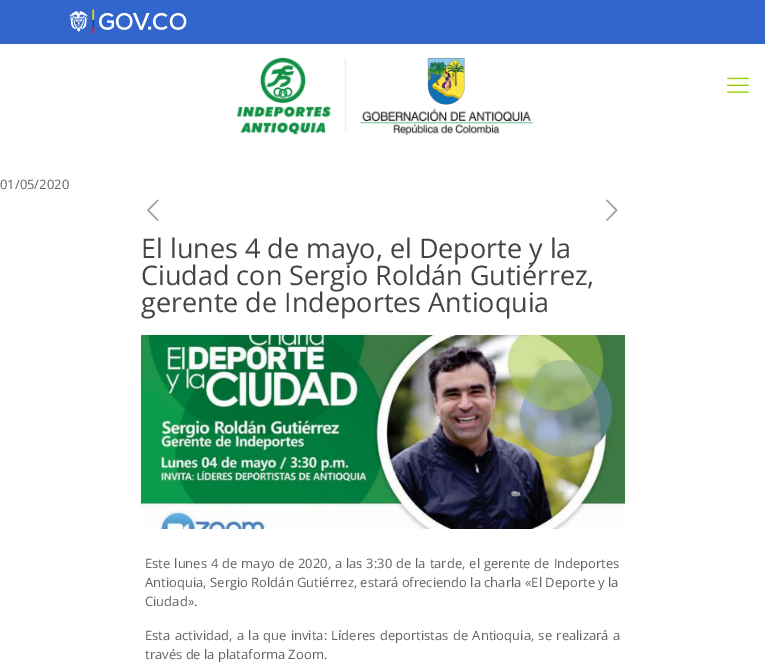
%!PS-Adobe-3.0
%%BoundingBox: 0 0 765 668
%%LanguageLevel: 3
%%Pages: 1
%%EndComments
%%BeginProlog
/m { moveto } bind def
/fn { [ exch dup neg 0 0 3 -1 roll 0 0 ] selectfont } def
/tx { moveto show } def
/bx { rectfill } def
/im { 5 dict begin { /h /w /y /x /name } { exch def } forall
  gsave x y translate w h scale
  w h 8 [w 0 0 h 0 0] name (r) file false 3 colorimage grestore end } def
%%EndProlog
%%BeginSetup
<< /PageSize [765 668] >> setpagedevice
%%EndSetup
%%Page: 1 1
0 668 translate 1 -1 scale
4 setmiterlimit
0.2 0.4 0.8 setrgbcolor
0 0 765 668 bx
(image0.raw) 69 9 118 25 im
1 setgray
0 44 765 624 bx
(image1.raw) 236 57 298 79 im
(image2.raw) 727 77 22 16 im
/OpenSans-Regular 13 fn
0.384 setgray
(01/05/2020) 0 189 tx
(image3.raw) 147 199 12 22 im
(image4.raw) 606 199 12 22 im
/OpenSans-Regular 27 fn
0.267 setgray
(El lunes 4 de mayo, el Deporte y la) 141 258 tx
(Ciudad con Sergio Roldán Gutiérrez,) 141 285 tx
(gerente de Indeportes Antioquia) 141 312 tx
(image5.raw) 141 335 484 194 im
/OpenSans-Regular 13 fn
0.384 setgray
145 568 m 0.5 0 32 (Este lunes 4 de mayo de 2020, a las 3:30 de la tarde, el gerente de Indeportes) widthshow
(Antioquia, Sergio Roldán Gutiérrez, estará ofreciendo la charla «El Deporte y la) 145 587 tx
(Ciudad».) 145 606 tx
145 640 m 1 0 32 (Esta actividad, a la que invita: Líderes deportistas de Antioquia, se realizará a) widthshow
(través de la plataforma Zoom.) 145 659 tx
showpage
%%EOF
